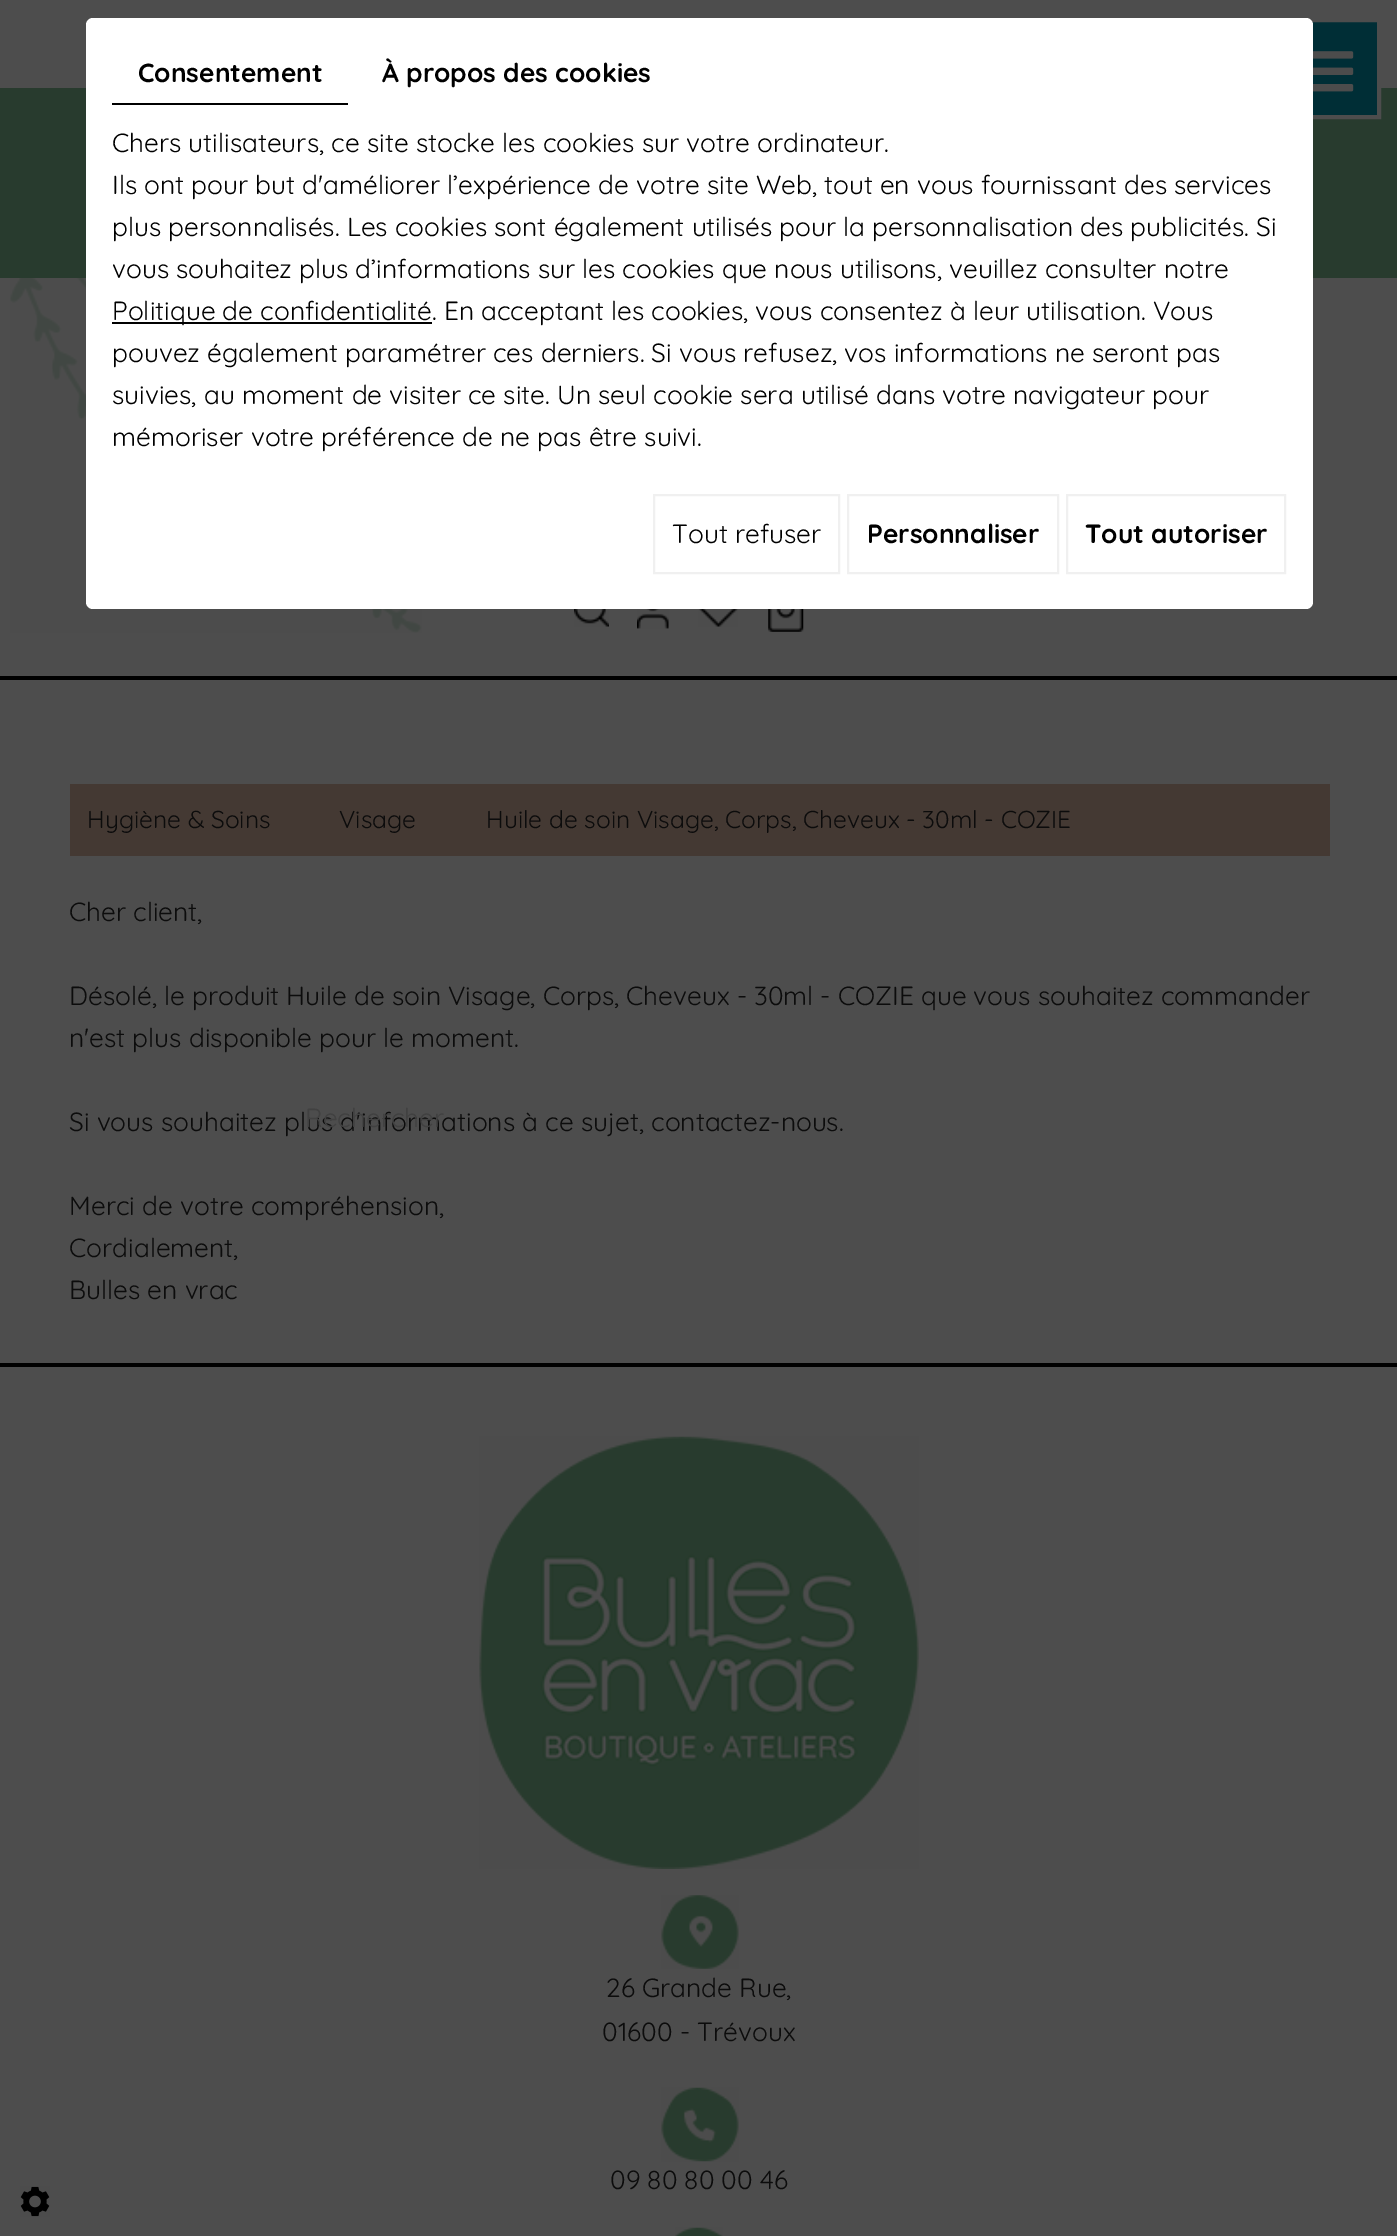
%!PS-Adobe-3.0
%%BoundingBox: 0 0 1397 2236
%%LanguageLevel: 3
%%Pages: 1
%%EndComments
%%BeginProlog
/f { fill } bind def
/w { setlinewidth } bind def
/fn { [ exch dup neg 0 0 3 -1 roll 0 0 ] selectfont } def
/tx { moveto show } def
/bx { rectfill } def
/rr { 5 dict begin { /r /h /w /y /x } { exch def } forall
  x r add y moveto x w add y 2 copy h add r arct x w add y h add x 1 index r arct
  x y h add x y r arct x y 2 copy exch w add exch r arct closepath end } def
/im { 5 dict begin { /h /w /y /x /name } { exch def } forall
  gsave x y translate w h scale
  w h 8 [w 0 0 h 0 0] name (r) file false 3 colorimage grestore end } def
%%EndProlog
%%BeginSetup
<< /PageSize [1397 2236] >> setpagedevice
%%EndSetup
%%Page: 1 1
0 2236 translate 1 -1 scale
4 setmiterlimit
0.302 setgray
0 0 1397 2236 bx
0.157 0.231 0.18 setrgbcolor
0 88 1397 190 bx
0 0.18 0.212 setrgbcolor
1312 22 65 93 bx
0.302 setgray
4 w
1281 20 98 97 rectstroke
(image5.raw) 10 278 412 355 im
1 setgray
86 18 1227 591 7 rr f
0 setgray
112 103 236 2 bx
/Quicksand-Bold 26.25 fn
(Consentement) 138 82 tx
(À propos des cookies) 382 82 tx
/Quicksand-Regular 26.25 fn
(Chers utilisateurs, ce site stocke les cookies sur votre ordinateur.) 112 152 tx
(Ils ont pour but d'améliorer l’expérience de votre site Web, tout en vous fournissant des services) 112 194 tx
(plus personnalisés. Les cookies sont également utilisés pour la personnalisation des publicités. Si) 112 236 tx
(vous souhaitez plus d’informations sur les cookies que nous utilisons, veuillez consulter notre) 112 278 tx
112 322 320 2 bx
(Politique de confidentialité. En acceptant les cookies, vous consentez à leur utilisation. Vous) 112 320 tx
(pouvez également paramétrer ces derniers. Si vous refusez, vos informations ne seront pas) 112 362 tx
(suivies, au moment de visiter ce site. Un seul cookie sera utilisé dans votre navigateur pour) 112 404 tx
(mémoriser votre préférence de ne pas être suivi.) 112 446 tx
0.941 setgray
2 w
654 495 185 78 rectstroke
0 setgray
(Tout refuser) 672 543 tx
0.941 setgray
848 495 210 78 rectstroke
/Quicksand-Bold 26.25 fn
0 setgray
(Personnaliser) 867 543 tx
0.941 setgray
1067 495 218 78 rectstroke
0 setgray
(Tout autoriser) 1085 543 tx
0.267 0.224 0.2 setrgbcolor
70 784 1260 72 bx
/Quicksand-Regular 24.5 fn
0.047 setgray
(Hygiène & Soins) 87 828 tx
(Visage) 339 828 tx
(Huile de soin Visage, Corps, Cheveux - 30ml - COZIE) 486 828 tx
/Quicksand-Regular 26.25 fn
(Cher client,) 69 921 tx
(Désolé, le produit Huile de soin Visage, Corps, Cheveux - 30ml - COZIE que vous souhaitez commander) 69 1005 tx
(n'est plus disponible pour le moment.) 69 1047 tx
(Si vous souhaitez plus d'informations à ce sujet, contactez-nous.) 69 1131 tx
(Merci de votre compréhension,) 69 1215 tx
(Cordialement,) 69 1257 tx
(Bulles en vrac) 69 1299 tx
0 setgray
0 676 1397 4 bx
(image0.raw) 1313 51 41 41 im
(image1.raw) 574 609 35 18 im
(image2.raw) 637 609 32 20 im
(image3.raw) 698 609 40 18 im
(image4.raw) 768 609 36 23 im
0.255 setgray
(Rechercher) 305 1127 tx
0 setgray
0 1363 1397 4 bx
(image6.raw) 479 1436 440 433 im
(image7.raw) 661 1895 78 74 im
0.047 setgray
(26 Grande Rue,) 606 1997 tx
(01600 - Trévoux) 602 2041 tx
(image8.raw) 661 2087 78 75 im
(09 80 80 00 46) 610 2189 tx
(image9.raw) 675 2227 48 9 im
(image10.raw) 20 2186 30 31 im
showpage
%%EOF
